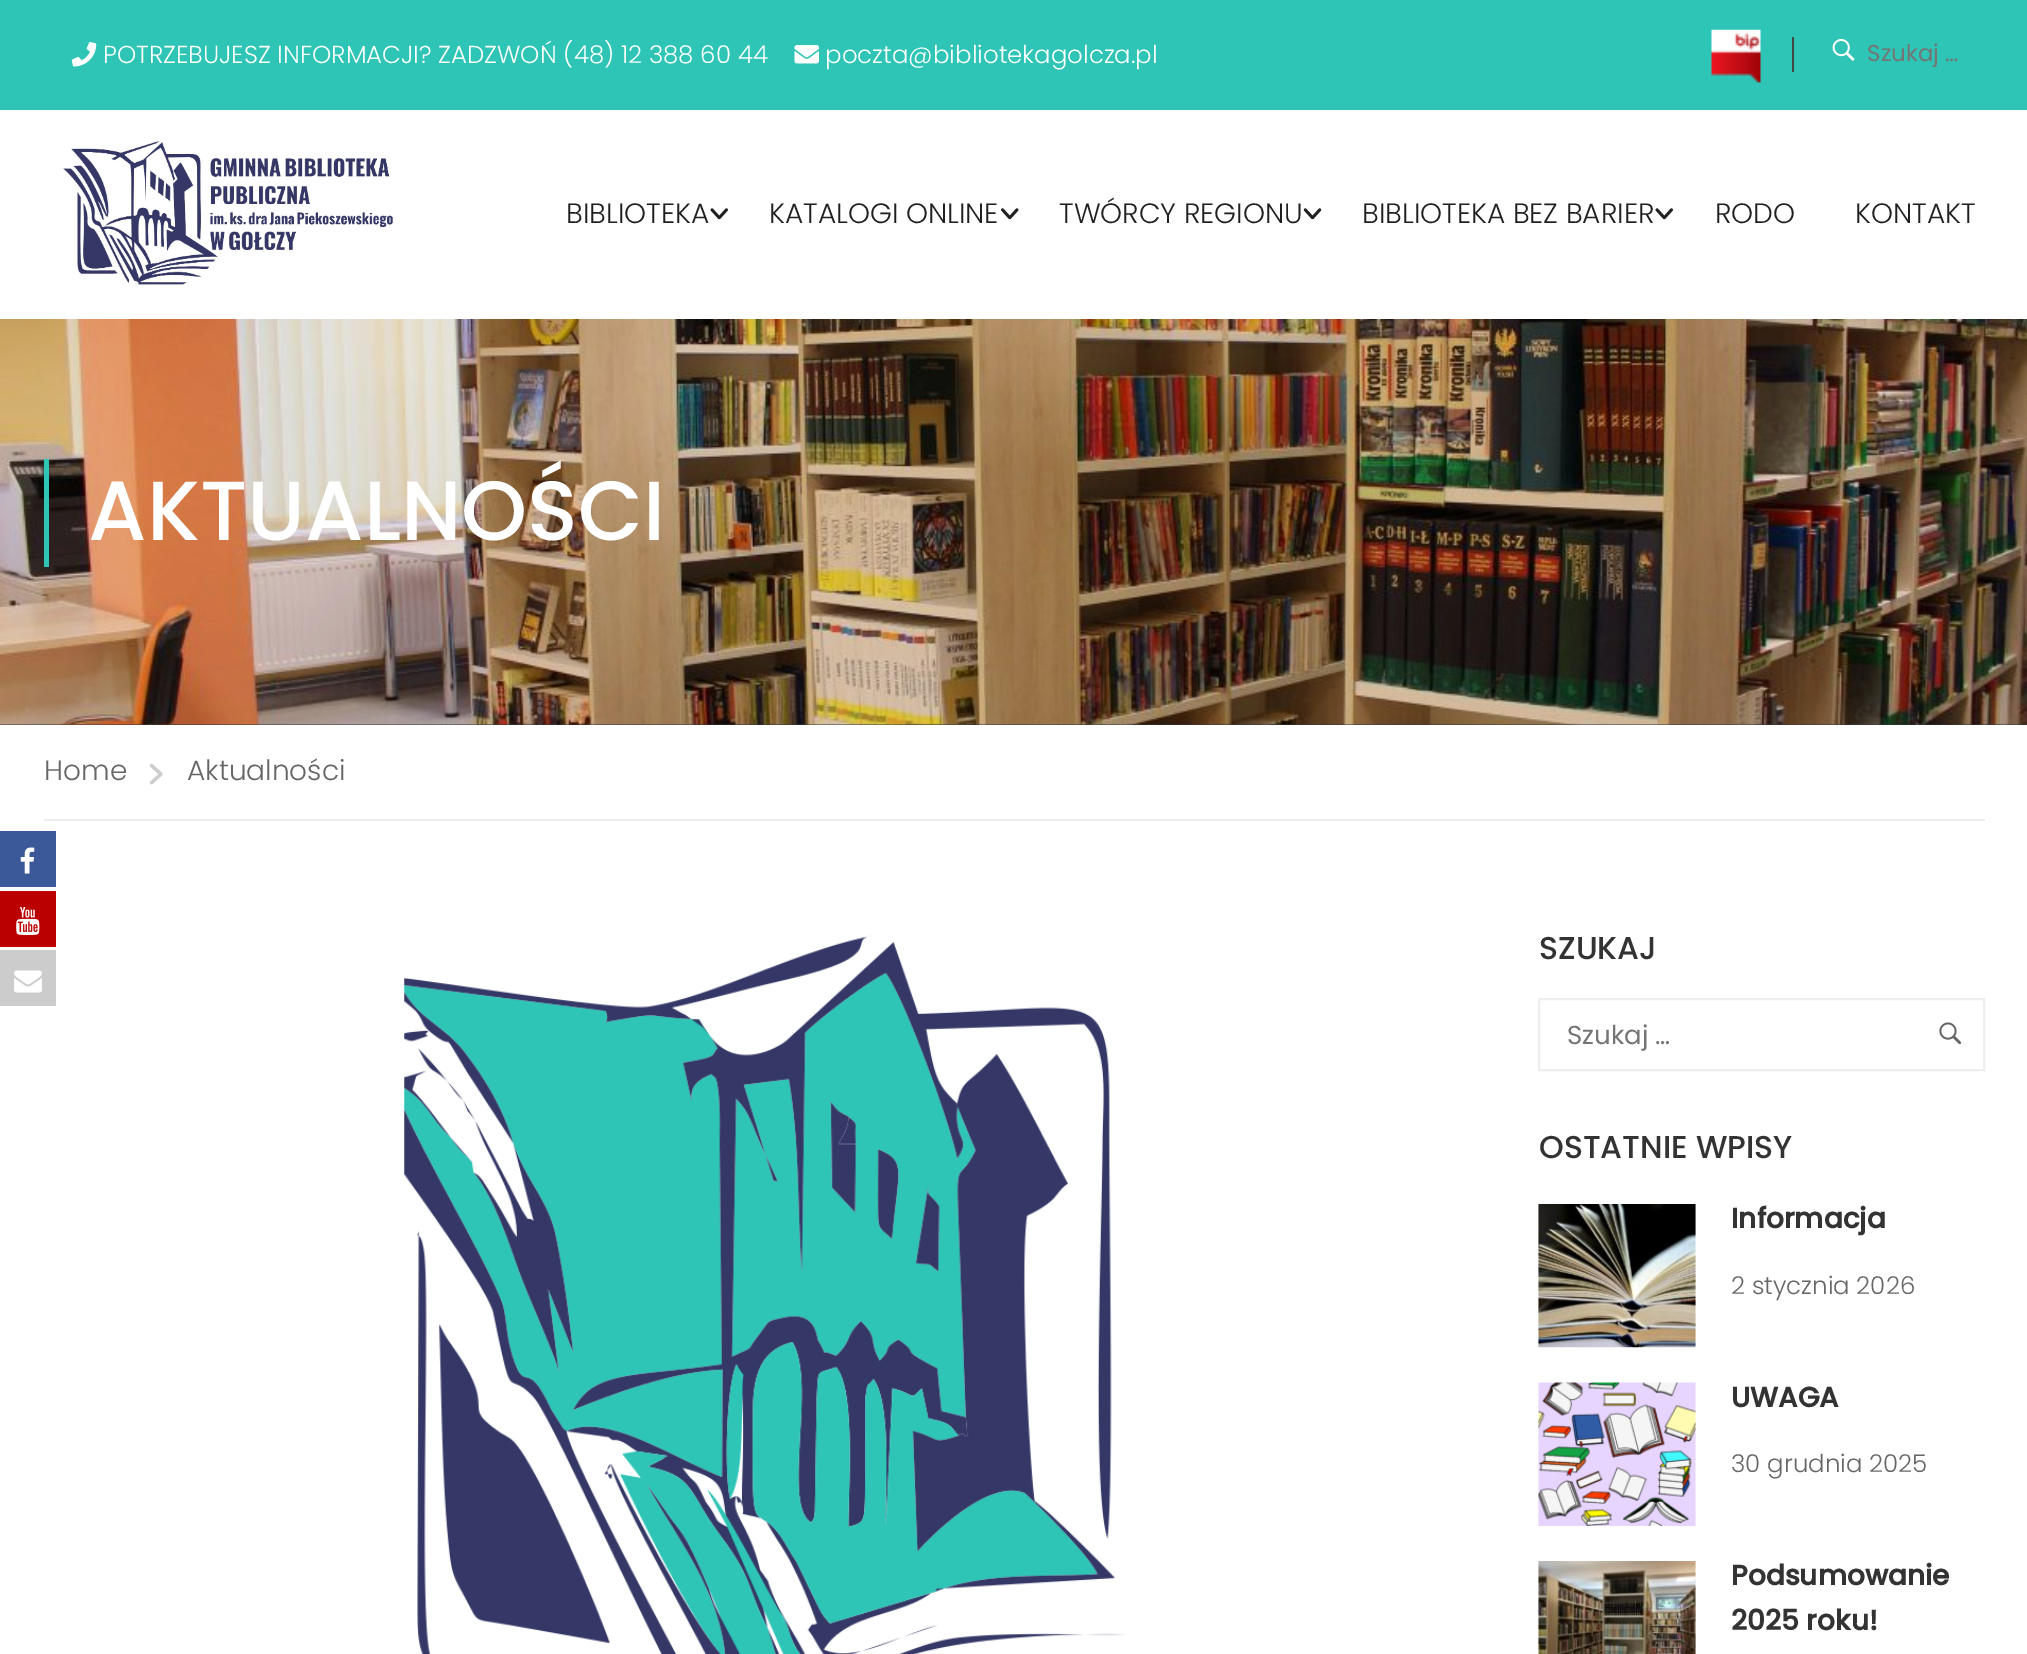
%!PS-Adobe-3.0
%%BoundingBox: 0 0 2027 1654
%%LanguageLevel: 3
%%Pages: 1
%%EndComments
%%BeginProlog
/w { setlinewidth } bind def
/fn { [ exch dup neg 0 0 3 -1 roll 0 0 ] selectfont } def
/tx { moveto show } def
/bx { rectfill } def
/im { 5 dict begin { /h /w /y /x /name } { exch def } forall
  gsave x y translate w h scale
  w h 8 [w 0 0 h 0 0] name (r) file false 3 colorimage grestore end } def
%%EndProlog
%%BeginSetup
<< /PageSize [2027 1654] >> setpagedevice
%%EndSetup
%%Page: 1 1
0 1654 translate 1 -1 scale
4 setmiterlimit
1 setgray
0 0 2027 1654 bx
0.231 0.349 0.596 setrgbcolor
0 831 56 56 bx
(image0.raw) 20 847 15 27 im
0.733 0 0 setrgbcolor
0 891 56 56 bx
(image1.raw) 16 907 24 28 im
0.8 setgray
0 950 56 56 bx
(image2.raw) 14 970 28 23 im
0.18 0.769 0.714 setrgbcolor
0 0 2027 110 bx
(image3.raw) 71 42 26 25 im
/Poppins-Light 24.5 fn
1 setgray
(POTRZEBUJESZ INFORMACJI? ZADZWOŃ \(48\) 12 388 60 44) 103 63 tx
(image4.raw) 794 45 25 19 im
(poczta@bibliotekagolcza.pl) 825 63 tx
(image5.raw) 1711 29 50 54 im
0.267 setgray
1792 37 2 35 bx
(image6.raw) 1832 38 23 23 im
/Poppins-Regular 23 fn
0.459 setgray
(Szukaj …) 1867 61 tx
(image7.raw) 63 140 330 145 im
/Poppins-Light 28 fn
0.125 setgray
(BIBLIOTEKA) 566 223 tx
(image8.raw) 710 208 18 12 im
(KATALOGI ONLINE) 769 223 tx
(image9.raw) 1001 208 18 12 im
(TWÓRCY REGIONU) 1059 223 tx
(image10.raw) 1303 208 19 12 im
(BIBLIOTEKA BEZ BARIER) 1362 223 tx
(image8.raw) 1655 208 18 12 im
(RODO) 1715 223 tx
(KONTAKT) 1855 223 tx
0.196 0.216 0.235 setrgbcolor
0 724 2027 1 bx
(image11.raw) 0 319 2027 406 im
0.18 0.769 0.714 setrgbcolor
44 459 5 108 bx
/Poppins-Medium 84 fn
1 setgray
(AKTUALNOŚCI) 88 540 tx
0.933 setgray
44 819 1941 2 bx
/Poppins-Light 28 fn
0.4 setgray
(Home) 44 780 tx
(image12.raw) 149 763 14 22 im
(Aktualności) 187 780 tx
(image13.raw) 404 935 721 719 im
/Poppins-Medium 31.5 fn
0.2 setgray
(SZUKAJ) 1539 959 tx
0.933 setgray
2 w
1539 999 445 71 rectstroke
/Poppins-Regular 26 fn
0.459 setgray
(Szukaj …) 1567 1044 tx
(image14.raw) 1939 1022 23 23 im
/Poppins-Medium 31.5 fn
0.2 setgray
(OSTATNIE WPISY) 1539 1158 tx
(image15.raw) 1538 1204 158 144 im
/Poppins-Bold 28 fn
(Informacja) 1731 1228 tx
/Poppins-Light 24.5 fn
0.4 setgray
(2 stycznia 2026) 1731 1294 tx
(image16.raw) 1538 1382 158 144 im
/Poppins-Bold 28 fn
0.2 setgray
(UWAGA) 1731 1407 tx
/Poppins-Light 24.5 fn
0.4 setgray
(30 grudnia 2025) 1731 1472 tx
(image17.raw) 1538 1561 158 93 im
/Poppins-Bold 28 fn
0.2 setgray
(Podsumowanie) 1731 1585 tx
(2025 roku!) 1731 1630 tx
showpage
%%EOF
